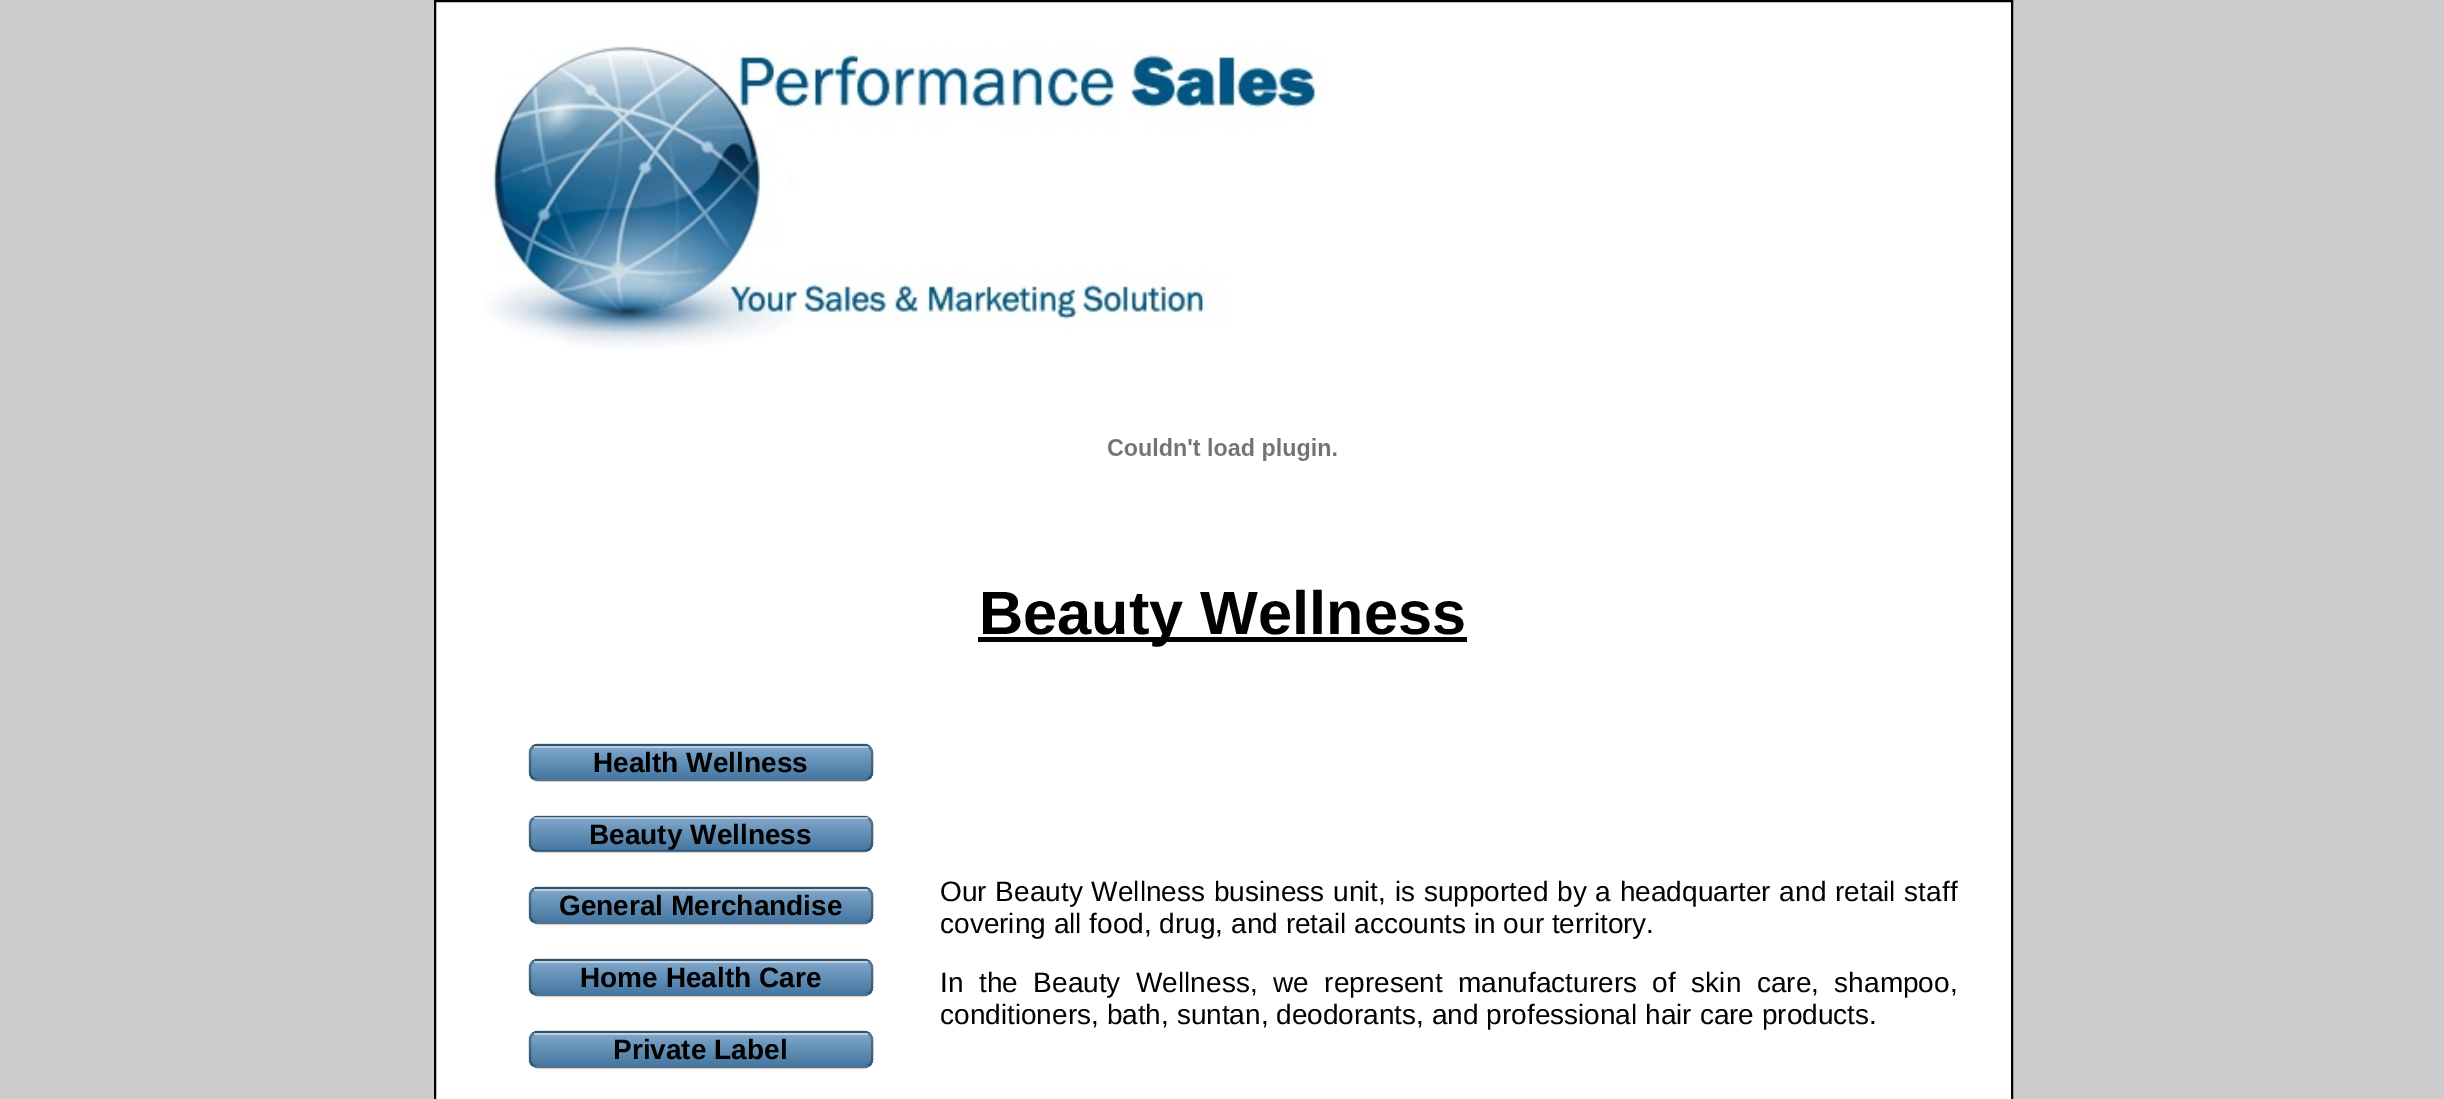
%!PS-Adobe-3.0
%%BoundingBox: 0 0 2444 1099
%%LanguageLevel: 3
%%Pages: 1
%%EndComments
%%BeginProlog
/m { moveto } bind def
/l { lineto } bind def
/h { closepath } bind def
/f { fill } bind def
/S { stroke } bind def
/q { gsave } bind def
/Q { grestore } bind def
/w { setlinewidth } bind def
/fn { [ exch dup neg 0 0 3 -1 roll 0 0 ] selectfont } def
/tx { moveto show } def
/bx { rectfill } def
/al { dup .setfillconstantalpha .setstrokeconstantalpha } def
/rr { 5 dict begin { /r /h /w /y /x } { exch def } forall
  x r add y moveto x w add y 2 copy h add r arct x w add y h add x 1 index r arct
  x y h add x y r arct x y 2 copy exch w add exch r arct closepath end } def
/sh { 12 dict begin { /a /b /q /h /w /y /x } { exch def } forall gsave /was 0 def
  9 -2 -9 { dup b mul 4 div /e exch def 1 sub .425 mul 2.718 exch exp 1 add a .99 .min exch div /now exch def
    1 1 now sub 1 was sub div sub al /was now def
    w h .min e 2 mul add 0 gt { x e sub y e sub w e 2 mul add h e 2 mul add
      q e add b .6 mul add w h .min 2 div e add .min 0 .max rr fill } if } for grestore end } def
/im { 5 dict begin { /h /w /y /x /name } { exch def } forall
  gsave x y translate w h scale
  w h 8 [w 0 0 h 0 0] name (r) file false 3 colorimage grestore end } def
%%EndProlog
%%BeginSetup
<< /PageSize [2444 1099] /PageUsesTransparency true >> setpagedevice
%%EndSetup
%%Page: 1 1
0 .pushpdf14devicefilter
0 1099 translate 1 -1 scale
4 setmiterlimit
0.8 setgray
0 0 2444 1099 bx
1 setgray
435 1 m 2012 1 l 2012 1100 l 435 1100 l h q f Q
0 setgray
2 w
S
(image0.raw) 484 46 844 302 im
(image1.raw) 1108 438 229 23 im
978 637 489 5 bx
/LiberationSans-Bold 61.25 fn
(Beauty Wellness) 979 634 tx
529 744 344 37 9 0.5 0.4 sh
q
529 744 344 37 9 rr clip newpath
q 529 744 m 873 744 l 873 746 l 529 746 l h clip newpath
<< /ShadingType 2 /ColorSpace /DeviceRGB /Coords [530 712 530 746] /Extend [true true] /Function << /FunctionType 2 /Domain [0 1] /C0 [0.506 0.659 0.796] /C1 [0.267 0.467 0.631] /N 1 >> >> shfill Q
q 529 746 m 873 746 l 873 779 l 529 779 l h clip newpath
<< /ShadingType 2 /ColorSpace /DeviceRGB /Coords [530 746 530 779] /Extend [true true] /Function << /FunctionType 2 /Domain [0 1] /C0 [0.506 0.659 0.796] /C1 [0.267 0.467 0.631] /N 1 >> >> shfill Q
q 529 779 m 873 779 l 873 781 l 529 781 l h clip newpath
<< /ShadingType 2 /ColorSpace /DeviceRGB /Coords [530 779 530 812] /Extend [true true] /Function << /FunctionType 2 /Domain [0 1] /C0 [0.506 0.659 0.796] /C1 [0.267 0.467 0.631] /N 1 >> >> shfill Q
Q
0.3 al
530 745 342 35 8 rr S
0.5 al
1 setgray
534 746 334 2 bx
/LiberationSans-Bold 28 fn
1 al
0 setgray
(Health Wellness) 593 772 tx
529 816 344 36 9 0.5 0.4 sh
q
529 816 344 36 9 rr clip newpath
q 529 816 m 873 816 l 873 817 l 529 817 l h clip newpath
<< /ShadingType 2 /ColorSpace /DeviceRGB /Coords [530 784 530 817] /Extend [true true] /Function << /FunctionType 2 /Domain [0 1] /C0 [0.506 0.659 0.796] /C1 [0.267 0.467 0.631] /N 1 >> >> shfill Q
q 529 817 m 873 817 l 873 851 l 529 851 l h clip newpath
<< /ShadingType 2 /ColorSpace /DeviceRGB /Coords [530 817 530 851] /Extend [true true] /Function << /FunctionType 2 /Domain [0 1] /C0 [0.506 0.659 0.796] /C1 [0.267 0.467 0.631] /N 1 >> >> shfill Q
q 529 851 m 873 851 l 873 852 l 529 852 l h clip newpath
<< /ShadingType 2 /ColorSpace /DeviceRGB /Coords [530 851 530 884] /Extend [true true] /Function << /FunctionType 2 /Domain [0 1] /C0 [0.506 0.659 0.796] /C1 [0.267 0.467 0.631] /N 1 >> >> shfill Q
Q
0.3 al
530 817 342 34 8 rr S
0.5 al
1 setgray
534 817 334 2 bx
1 al
0 setgray
(Beauty Wellness) 589 844 tx
529 887 344 37 9 0.5 0.4 sh
q
529 887 344 37 9 rr clip newpath
q 529 887 m 873 887 l 873 889 l 529 889 l h clip newpath
<< /ShadingType 2 /ColorSpace /DeviceRGB /Coords [530 856 530 889] /Extend [true true] /Function << /FunctionType 2 /Domain [0 1] /C0 [0.506 0.659 0.796] /C1 [0.267 0.467 0.631] /N 1 >> >> shfill Q
q 529 889 m 873 889 l 873 922 l 529 922 l h clip newpath
<< /ShadingType 2 /ColorSpace /DeviceRGB /Coords [530 889 530 922] /Extend [true true] /Function << /FunctionType 2 /Domain [0 1] /C0 [0.506 0.659 0.796] /C1 [0.267 0.467 0.631] /N 1 >> >> shfill Q
q 529 922 m 873 922 l 873 924 l 529 924 l h clip newpath
<< /ShadingType 2 /ColorSpace /DeviceRGB /Coords [530 922 530 956] /Extend [true true] /Function << /FunctionType 2 /Domain [0 1] /C0 [0.506 0.659 0.796] /C1 [0.267 0.467 0.631] /N 1 >> >> shfill Q
Q
0.3 al
530 888 342 35 8 rr S
0.5 al
1 setgray
534 889 334 2 bx
1 al
0 setgray
(General Merchandise) 559 915 tx
529 959 344 37 9 0.5 0.4 sh
q
529 959 344 37 9 rr clip newpath
q 529 959 m 873 959 l 873 961 l 529 961 l h clip newpath
<< /ShadingType 2 /ColorSpace /DeviceRGB /Coords [530 928 530 961] /Extend [true true] /Function << /FunctionType 2 /Domain [0 1] /C0 [0.506 0.659 0.796] /C1 [0.267 0.467 0.631] /N 1 >> >> shfill Q
q 529 961 m 873 961 l 873 994 l 529 994 l h clip newpath
<< /ShadingType 2 /ColorSpace /DeviceRGB /Coords [530 961 530 994] /Extend [true true] /Function << /FunctionType 2 /Domain [0 1] /C0 [0.506 0.659 0.796] /C1 [0.267 0.467 0.631] /N 1 >> >> shfill Q
q 529 994 m 873 994 l 873 996 l 529 996 l h clip newpath
<< /ShadingType 2 /ColorSpace /DeviceRGB /Coords [530 994 530 1027] /Extend [true true] /Function << /FunctionType 2 /Domain [0 1] /C0 [0.506 0.659 0.796] /C1 [0.267 0.467 0.631] /N 1 >> >> shfill Q
Q
0.3 al
530 960 342 35 8 rr S
0.5 al
1 setgray
534 961 334 2 bx
1 al
0 setgray
(Home Health Care) 580 987 tx
529 1031 344 37 9 0.5 0.4 sh
q
529 1031 344 37 9 rr clip newpath
q 529 1031 m 873 1031 l 873 1033 l 529 1033 l h clip newpath
<< /ShadingType 2 /ColorSpace /DeviceRGB /Coords [530 999 530 1033] /Extend [true true] /Function << /FunctionType 2 /Domain [0 1] /C0 [0.506 0.659 0.796] /C1 [0.267 0.467 0.631] /N 1 >> >> shfill Q
q 529 1033 m 873 1033 l 873 1066 l 529 1066 l h clip newpath
<< /ShadingType 2 /ColorSpace /DeviceRGB /Coords [530 1033 530 1066] /Extend [true true] /Function << /FunctionType 2 /Domain [0 1] /C0 [0.506 0.659 0.796] /C1 [0.267 0.467 0.631] /N 1 >> >> shfill Q
q 529 1066 m 873 1066 l 873 1068 l 529 1068 l h clip newpath
<< /ShadingType 2 /ColorSpace /DeviceRGB /Coords [530 1066 530 1099] /Extend [true true] /Function << /FunctionType 2 /Domain [0 1] /C0 [0.506 0.659 0.796] /C1 [0.267 0.467 0.631] /N 1 >> >> shfill Q
Q
0.3 al
530 1032 342 35 8 rr S
0.5 al
1 setgray
534 1033 334 2 bx
1 al
0 setgray
(Private Label) 613 1059 tx
/LiberationSans-Regular 28 fn
940 901 m 1 0 32 (Our Beauty Wellness business unit, is supported by a headquarter and retail staff) widthshow
(covering all food, drug, and retail accounts in our territory.) 940 933 tx
940 992 m 7.75 0 32 (In the Beauty Wellness, we represent manufacturers of skin care, shampoo,) widthshow
(conditioners, bath, suntan, deodorants, and professional hair care products.) 940 1024 tx
.poppdf14devicefilter showpage
%%EOF
